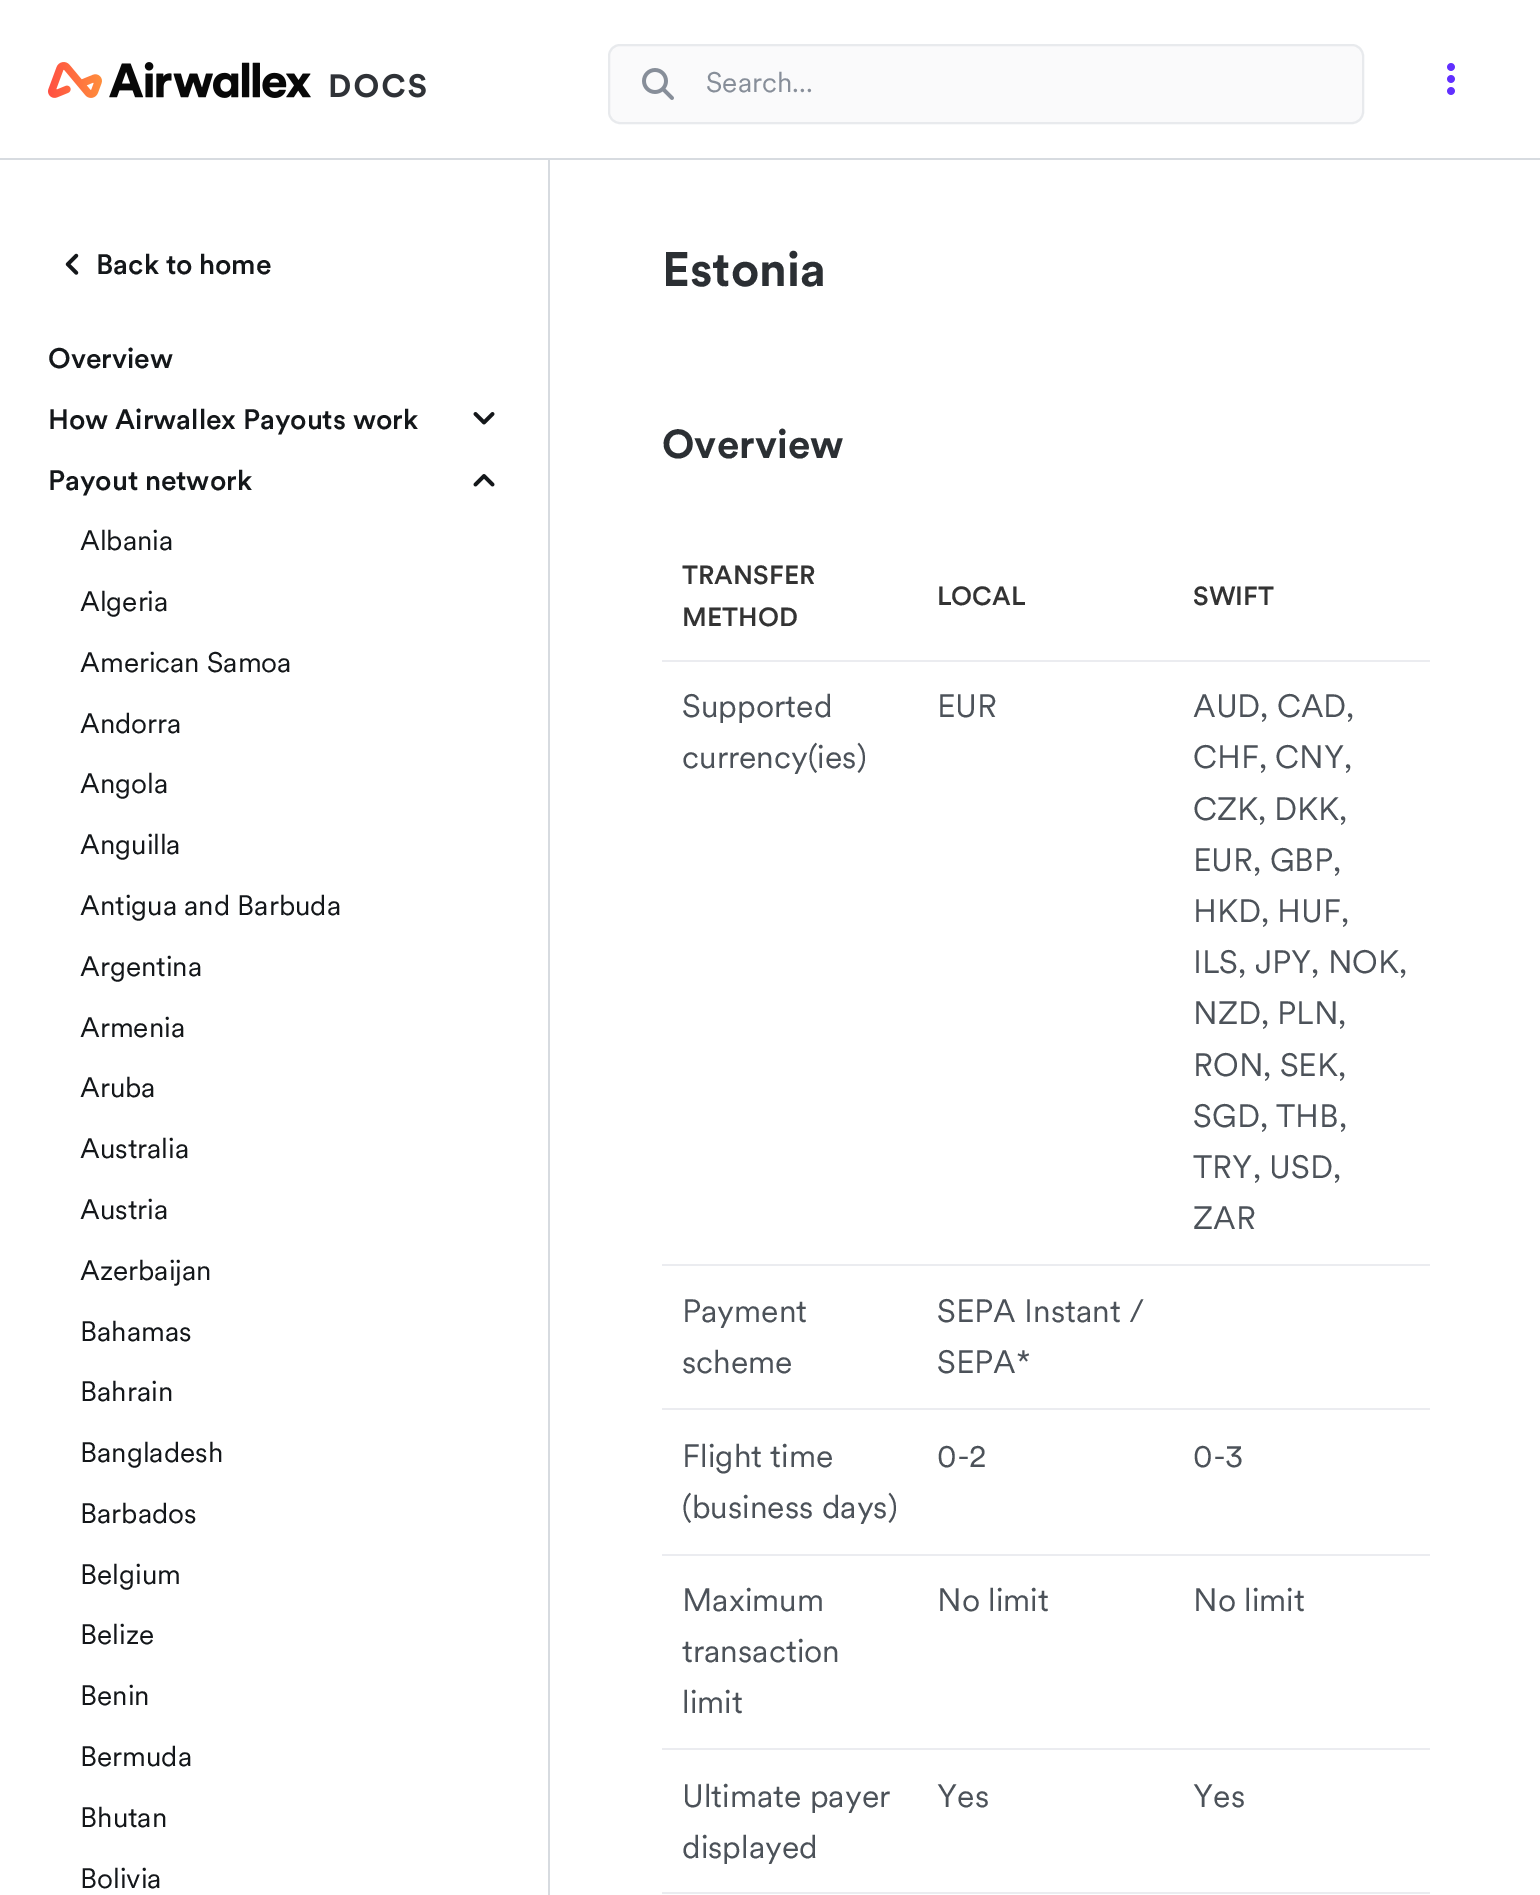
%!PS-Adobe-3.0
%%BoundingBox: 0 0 1540 1895
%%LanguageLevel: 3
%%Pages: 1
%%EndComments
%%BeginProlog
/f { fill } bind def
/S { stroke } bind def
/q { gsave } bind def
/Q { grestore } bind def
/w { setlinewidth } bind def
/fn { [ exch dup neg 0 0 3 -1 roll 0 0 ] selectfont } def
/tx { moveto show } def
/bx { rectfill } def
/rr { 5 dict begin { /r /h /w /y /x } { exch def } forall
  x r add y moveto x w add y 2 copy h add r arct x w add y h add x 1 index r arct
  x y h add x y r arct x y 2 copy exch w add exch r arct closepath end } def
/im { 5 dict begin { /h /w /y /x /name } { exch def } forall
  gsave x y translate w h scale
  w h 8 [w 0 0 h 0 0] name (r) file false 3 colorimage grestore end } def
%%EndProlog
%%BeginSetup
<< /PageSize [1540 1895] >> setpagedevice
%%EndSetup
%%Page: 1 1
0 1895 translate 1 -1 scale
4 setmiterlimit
1 setgray
0 0 1540 1895 bx
0.843 0.859 0.878 setrgbcolor
0 158 1540 2 bx
(image0.raw) 48 62 378 36 im
0.98 0.98 0.984 setrgbcolor
609 45 754 78 11 rr q f Q
0.91 0.918 0.929 setrgbcolor
2 w
S
(image1.raw) 642 68 32 32 im
/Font-Regular 28 fn
0.529 0.557 0.6 setrgbcolor
(Search...) 706 92 tx
(image2.raw) 1447 63 8 32 im
0.843 0.859 0.878 setrgbcolor
548 160 2 1735 bx
(image3.raw) 65 253 14 22 im
/Font-Medium 28 fn
0.078 0.09 0.102 setrgbcolor
(Back to home) 96 274 tx
(Overview) 48 368 tx
(How Airwallex Payouts work) 48 429 tx
(image4.raw) 473 412 22 13 im
(Payout network) 48 490 tx
(image5.raw) 473 474 22 13 im
/Font-Regular 28 fn
(Albania) 80 550 tx
(Algeria) 80 611 tx
(American Samoa) 80 672 tx
(Andorra) 80 733 tx
(Angola) 80 793 tx
(Anguilla) 80 854 tx
(Antigua and Barbuda) 80 915 tx
(Argentina) 80 976 tx
(Armenia) 80 1037 tx
(Aruba) 80 1097 tx
(Australia) 80 1158 tx
(Austria) 80 1219 tx
(Azerbaijan) 80 1280 tx
(Bahamas) 80 1341 tx
(Bahrain) 80 1401 tx
(Bangladesh) 80 1462 tx
(Barbados) 80 1523 tx
(Belgium) 80 1584 tx
(Belize) 80 1644 tx
(Benin) 80 1705 tx
(Bermuda) 80 1766 tx
(Bhutan) 80 1827 tx
(Bolivia) 80 1888 tx
/Font-Bold 48 fn
0.169 0.184 0.2 setrgbcolor
(Estonia) 662 286 tx
/Font-Bold 40 fn
(Overview) 662 458 tx
0.922 0.925 0.941 setrgbcolor
662 660 768 2 bx
/Font-Medium 26 fn
0.2 setgray
(TRANSFER) 682 584 tx
(METHOD) 682 626 tx
(LOCAL) 937 605 tx
(SWIFT) 1193 605 tx
0.922 0.925 0.941 setrgbcolor
662 1264 768 2 bx
/Font-Regular 32 fn
0.298 0.322 0.349 setrgbcolor
(Supported) 682 717 tx
(currency\(ies\)) 682 768 tx
(EUR) 937 717 tx
(AUD, CAD,) 1193 717 tx
(CHF, CNY,) 1193 768 tx
(CZK, DKK,) 1193 820 tx
(EUR, GBP,) 1193 871 tx
(HKD, HUF,) 1193 922 tx
(ILS, JPY, NOK,) 1193 973 tx
(NZD, PLN,) 1193 1024 tx
(RON, SEK,) 1193 1076 tx
(SGD, THB,) 1193 1127 tx
(TRY, USD,) 1193 1178 tx
(ZAR) 1193 1229 tx
0.922 0.925 0.941 setrgbcolor
662 1408 768 2 bx
0.298 0.322 0.349 setrgbcolor
(Payment) 682 1322 tx
(scheme) 682 1373 tx
(SEPA Instant /) 937 1322 tx
(SEPA*) 937 1373 tx
0.922 0.925 0.941 setrgbcolor
662 1554 768 2 bx
0.298 0.322 0.349 setrgbcolor
(Flight time) 682 1467 tx
(\(business days\)) 682 1518 tx
(0-2) 937 1467 tx
(0-3) 1193 1467 tx
0.922 0.925 0.941 setrgbcolor
662 1748 768 2 bx
0.298 0.322 0.349 setrgbcolor
(Maximum) 682 1611 tx
(transaction) 682 1662 tx
(limit) 682 1713 tx
(No limit) 937 1611 tx
(No limit) 1193 1611 tx
0.922 0.925 0.941 setrgbcolor
662 1892 768 2 bx
0.298 0.322 0.349 setrgbcolor
(Ultimate payer) 682 1807 tx
(displayed) 682 1858 tx
(Yes) 937 1807 tx
(Yes) 1193 1807 tx
showpage
%%EOF
